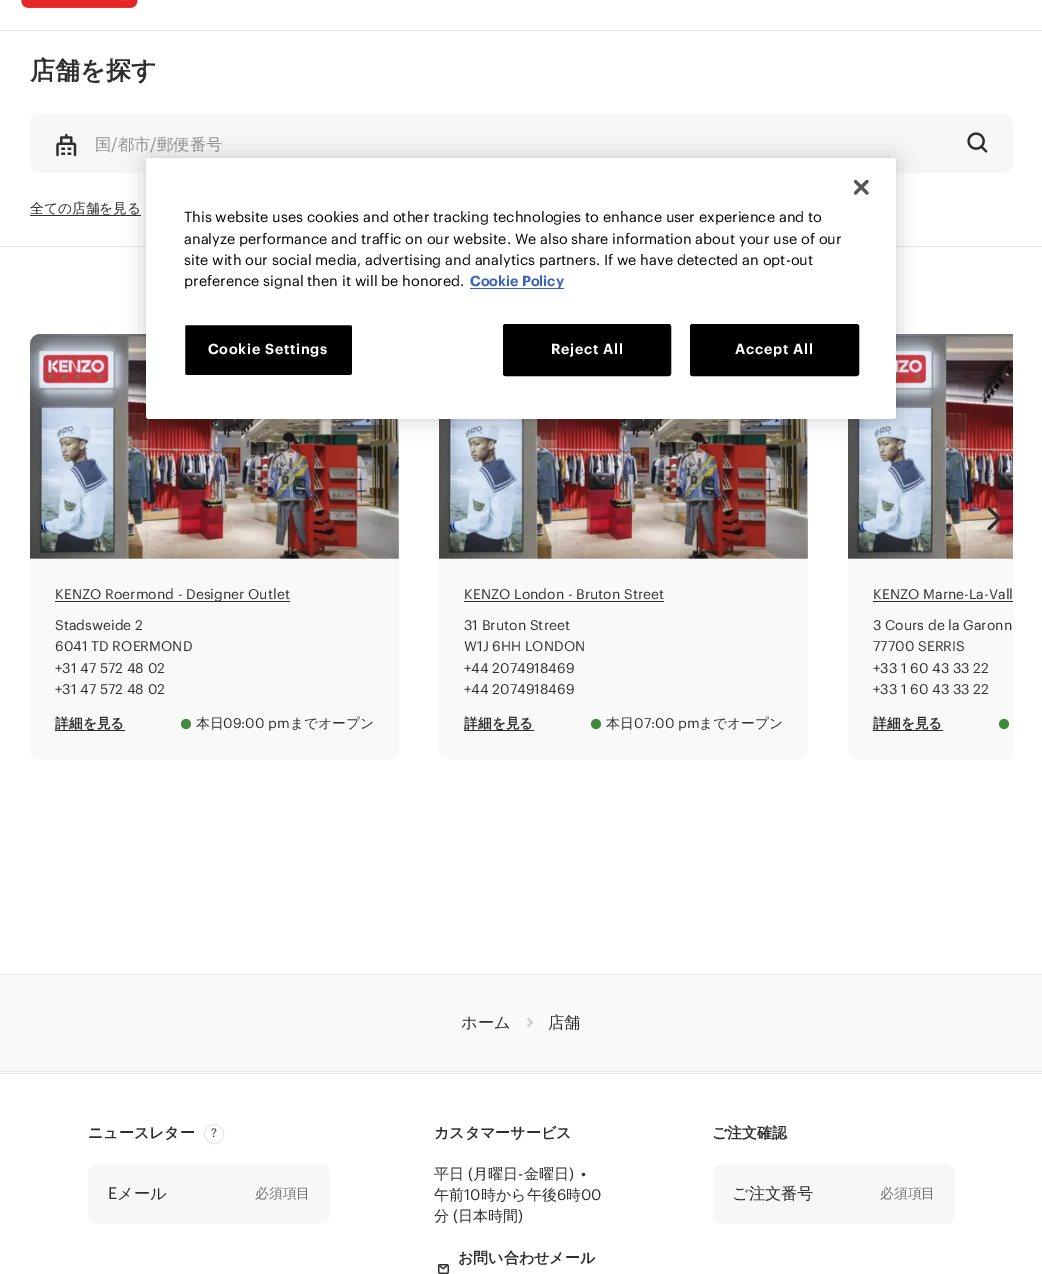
%!PS-Adobe-3.0
%%BoundingBox: 0 0 1042 1274
%%LanguageLevel: 3
%%Pages: 1
%%EndComments
%%BeginProlog
/m { moveto } bind def
/l { lineto } bind def
/c { curveto } bind def
/h { closepath } bind def
/f { fill } bind def
/S { stroke } bind def
/q { gsave } bind def
/Q { grestore } bind def
/fn { [ exch dup neg 0 0 3 -1 roll 0 0 ] selectfont } def
/tx { moveto show } def
/bx { rectfill } def
/al { dup .setfillconstantalpha .setstrokeconstantalpha } def
/ci { newpath 0 360 arc closepath } def
/rr { 5 dict begin { /r /h /w /y /x } { exch def } forall
  x r add y moveto x w add y 2 copy h add r arct x w add y h add x 1 index r arct
  x y h add x y r arct x y 2 copy exch w add exch r arct closepath end } def
/sh { 12 dict begin { /a /b /q /h /w /y /x } { exch def } forall gsave /was 0 def
  9 -2 -9 { dup b mul 4 div /e exch def 1 sub .425 mul 2.718 exch exp 1 add a .99 .min exch div /now exch def
    1 1 now sub 1 was sub div sub al /was now def
    w h .min e 2 mul add 0 gt { x e sub y e sub w e 2 mul add h e 2 mul add
      q e add b .6 mul add w h .min 2 div e add .min 0 .max rr fill } if } for grestore end } def
/im { 5 dict begin { /h /w /y /x /name } { exch def } forall
  gsave x y translate w h scale
  w h 8 [w 0 0 h 0 0] name (r) file false 3 colorimage grestore end } def
%%EndProlog
%%BeginSetup
<< /PageSize [1042 1274] /PageUsesTransparency true >> setpagedevice
%%EndSetup
%%Page: 1 1
0 .pushpdf14devicefilter
0 1274 translate 1 -1 scale
4 setmiterlimit
1 setgray
0 0 1042 1274 bx
(image0.raw) 21 0 117 8 im
0.914 setgray
0 30 1042 1 bx
0 246 1042 1 bx
/WenQuanYiZenHei-Bold 25 fn
0.18 setgray
(店舗を探す) 30 79 tx
0.969 setgray
30 113 983 60 10 rr f
(image1.raw) 56 133 21 24 im
/WenQuanYiZenHei-Medium 16.25 fn
0.576 setgray
(国) 95 150 tx
/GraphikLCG-Regular 16.25 fn
(/) 111 150 tx
/WenQuanYiZenHei-Medium 16.25 fn
(都市) 118 150 tx
/GraphikLCG-Regular 16.25 fn
(/) 150 150 tx
/WenQuanYiZenHei-Medium 16.25 fn
(郵便番号) 157 150 tx
(image2.raw) 967 132 21 21 im
/WenQuanYiZenHei-Medium 13.75 fn
0.18 setgray
(全ての店舗を見る) 30 213 tx
30 215 111 1 bx
0.976 setgray
858 334 m 1013 334 l 1013 759 l 858 759 l 852.5 759 848 754.5 848 749 c 848 344 l 848 338.5 852.5 334 858 334 c h f
(image6.raw) 848 334 165 225 im
(image3.raw) 987 507 14 24 im
30 334 369 425 10 rr f
(image4.raw) 30 334 369 225 im
/GraphikLCG-Regular 13.75 fn
0.18 setgray
(KENZO Roermond - Designer Outlet) 55 599 tx
55 601 235 1 bx
(Stadsweide 2) 55 630 tx
(6041 TD ROERMOND) 55 651 tx
(+31 47 572 48 02) 55 673 tx
(+31 47 572 48 02) 55 694 tx
/WenQuanYiZenHei-Bold 13.75 fn
(詳細を見る) 55 728 tx
55 730 70 1 bx
0.267 0.533 0.247 setrgbcolor
186 724 5 ci f
/WenQuanYiZenHei-Medium 13.75 fn
0.18 setgray
(本日) 196 728 tx
/GraphikLCG-Regular 13.75 fn
(09:00 pm) 223 728 tx
/WenQuanYiZenHei-Medium 13.75 fn
(までオープン) 290 728 tx
0.976 setgray
439 334 369 425 10 rr f
(image5.raw) 439 419 369 140 im
/GraphikLCG-Regular 13.75 fn
0.18 setgray
(KENZO London - Bruton Street) 464 599 tx
464 601 200 1 bx
(31 Bruton Street) 464 630 tx
(W1J 6HH LONDON) 464 651 tx
(+44 2074918469) 464 673 tx
(+44 2074918469) 464 694 tx
/WenQuanYiZenHei-Bold 13.75 fn
(詳細を見る) 464 728 tx
464 730 70 1 bx
0.267 0.533 0.247 setrgbcolor
596 724 5 ci f
/WenQuanYiZenHei-Medium 13.75 fn
0.18 setgray
(本日) 606 728 tx
/GraphikLCG-Regular 13.75 fn
(07:00 pm) 634 728 tx
/WenQuanYiZenHei-Medium 13.75 fn
(までオープン) 699 728 tx
/GraphikLCG-Regular 13.75 fn
(KENZO Marne-La-Vall) 873 599 tx
873 601 140 1 bx
(3 Cours de la Garonn) 873 630 tx
(77700 SERRIS) 873 651 tx
(+33 1 60 43 33 22) 873 673 tx
(+33 1 60 43 33 22) 873 694 tx
/WenQuanYiZenHei-Bold 13.75 fn
(詳細を見る) 873 728 tx
873 730 70 1 bx
0.267 0.533 0.247 setrgbcolor
1004 724 5 ci f
0.976 setgray
0 975 1042 96 bx
0.914 setgray
0 974 1042 1 bx
0 1071 1042 1 bx
/WenQuanYiZenHei-Medium 16.25 fn
0.18 setgray
(ホーム) 461 1028 tx
(image7.raw) 527 1017 6 11 im
(店舗) 548 1028 tx
0.914 setgray
0 1073 1042 1 bx
/WenQuanYiZenHei-Bold 15 fn
0.18 setgray
(ニュースレター) 88 1138 tx
0.914 setgray
214 1134 9.5 ci S
/GraphikLCG-Regular 12 fn
0.18 setgray
(?) 211 1137 tx
0.969 setgray
88 1164 242 60 10 rr f
/GraphikLCG-Regular 16.25 fn
0.18 setgray
(E) 108 1199 tx
/WenQuanYiZenHei-Medium 16.25 fn
(メール) 117 1199 tx
/WenQuanYiZenHei-Medium 13.75 fn
0.439 setgray
(必須項目) 255 1198 tx
/WenQuanYiZenHei-Bold 15 fn
0.18 setgray
(カスタマーサービス) 434 1138 tx
/WenQuanYiZenHei-Medium 15 fn
(平日) 434 1179 tx
/GraphikLCG-Regular 15 fn
(\() 468 1179 tx
/WenQuanYiZenHei-Medium 15 fn
(月曜日) 473 1179 tx
/GraphikLCG-Regular 15 fn
(-) 518 1179 tx
/WenQuanYiZenHei-Medium 15 fn
(金曜日) 524 1179 tx
/GraphikLCG-Regular 15 fn
(\)) 569 1179 tx
(•) 581 1179 tx
/WenQuanYiZenHei-Medium 15 fn
(午前) 434 1200 tx
/GraphikLCG-Regular 15 fn
(10) 464 1200 tx
/WenQuanYiZenHei-Medium 15 fn
(時から午後) 481 1200 tx
/GraphikLCG-Regular 15 fn
(6) 557 1200 tx
/WenQuanYiZenHei-Medium 15 fn
(時) 566 1200 tx
/GraphikLCG-Regular 15 fn
(00) 581 1200 tx
/WenQuanYiZenHei-Medium 15 fn
(分) 434 1221 tx
/GraphikLCG-Regular 15 fn
(\() 453 1221 tx
/WenQuanYiZenHei-Medium 15 fn
(日本時間) 458 1221 tx
/GraphikLCG-Regular 15 fn
(\)) 518 1221 tx
/WenQuanYiZenHei-Bold 15 fn
(お問い合わせメール) 458 1263 tx
(image8.raw) 438 1264 11 10 im
(ご注文確認) 712 1138 tx
0.969 setgray
713 1164 242 60 10 rr f
/WenQuanYiZenHei-Medium 16.25 fn
0.18 setgray
(ご注文番号) 732 1199 tx
/WenQuanYiZenHei-Medium 13.75 fn
0.439 setgray
(必須項目) 880 1198 tx
0 setgray
146 158 750 261 3 11 0.2 sh
1 setgray
146 158 750 261 3 rr f
(image9.raw) 854 180 15 15 im
/GraphikLCG-Regular 14.25 fn
0 setgray
(This website uses cookies and other tracking technologies to enhance user experience and to) 184 222 tx
(analyze performance and traffic on our website. We also share information about your use of our) 184 244 tx
(site with our social media, advertising and analytics partners. If we have detected an opt-out) 184 265 tx
(preference signal then it will be honored.) 184 286 tx
0.22 0.376 0.745 setrgbcolor
470 288 94 1 bx
/Graphik-SemiBold 14.25 fn
(Cookie Policy) 470 286 tx
0 setgray
184.5 324.5 168 51 2 rr q f Q
1 setgray
S
208 354 m 0.75 0 (Cookie Settings) ashow
0 setgray
503.5 324.5 167 51 2 rr q f Q
S
1 setgray
551 354 m 0.75 0 (Reject All) ashow
0 setgray
690.5 324.5 168 51 2 rr q f Q
S
1 setgray
735 354 m 0.75 0 (Accept All) ashow
.poppdf14devicefilter showpage
%%EOF
